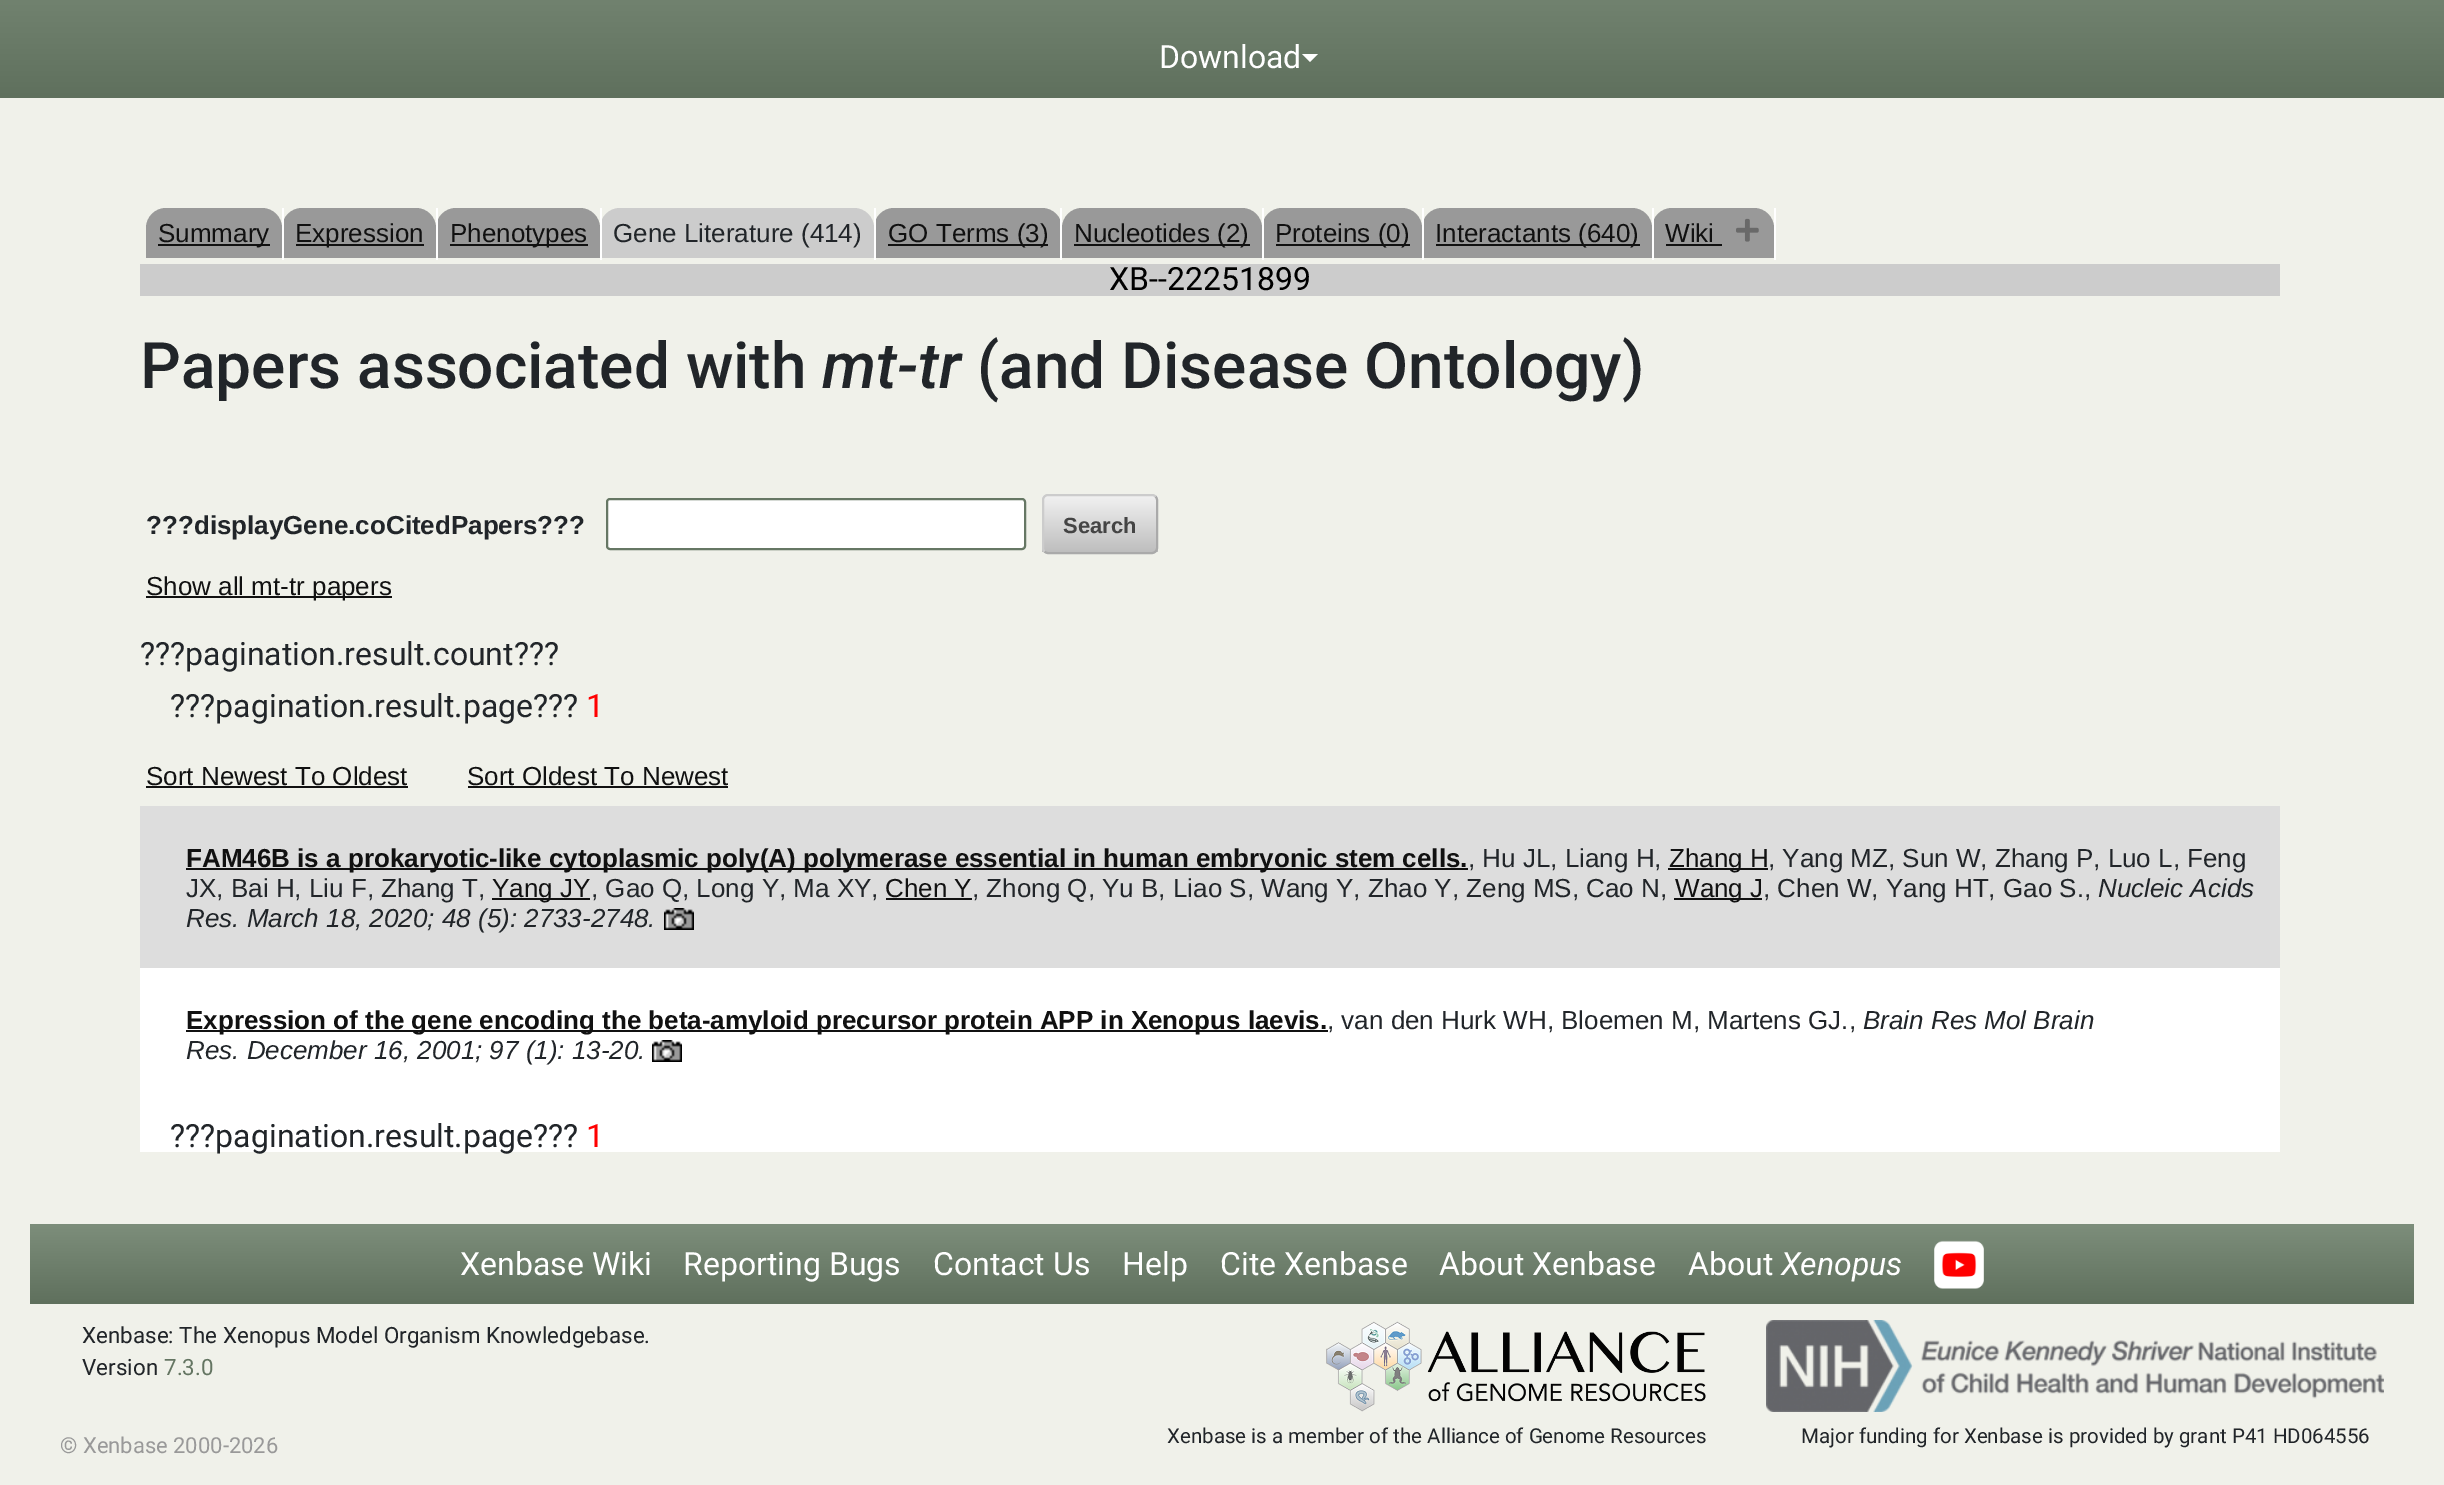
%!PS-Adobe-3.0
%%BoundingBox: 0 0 2444 1485
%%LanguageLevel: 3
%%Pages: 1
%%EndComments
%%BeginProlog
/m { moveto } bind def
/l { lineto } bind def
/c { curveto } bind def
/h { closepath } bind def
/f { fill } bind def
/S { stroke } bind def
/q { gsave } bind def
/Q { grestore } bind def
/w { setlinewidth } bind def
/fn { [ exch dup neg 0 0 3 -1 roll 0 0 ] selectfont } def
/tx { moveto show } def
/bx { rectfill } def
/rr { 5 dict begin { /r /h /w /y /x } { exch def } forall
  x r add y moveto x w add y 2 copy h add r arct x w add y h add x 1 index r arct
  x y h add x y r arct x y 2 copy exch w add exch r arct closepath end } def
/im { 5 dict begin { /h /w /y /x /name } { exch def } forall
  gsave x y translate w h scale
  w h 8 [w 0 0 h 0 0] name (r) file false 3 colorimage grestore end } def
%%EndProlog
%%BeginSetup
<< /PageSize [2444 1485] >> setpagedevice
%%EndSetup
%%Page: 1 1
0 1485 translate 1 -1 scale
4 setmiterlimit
0.941 0.945 0.918 setrgbcolor
0 0 2444 1485 bx
q 0 0 m 2444 0 l 2444 98 l 0 98 l h clip newpath
<< /ShadingType 2 /ColorSpace /DeviceRGB /Coords [1222 -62 1222 98] /Extend [true true] /Function << /FunctionType 2 /Domain [0 1] /C0 [0.49 0.557 0.482] /C1 [0.373 0.439 0.365] /N 1 >> >> shfill Q
/Roboto-Regular 32 fn
1 setgray
(Download) 1159 68 tx
1302 54 m 1318 54 l 1310 62 l h f
0.6 setgray
166 208 m 262 208 l 273 208 282 217 282 228 c 282 258 l 146 258 l 146 228 l 146 217 155 208 166 208 c h f
302 208 m 416 208 l 427 208 436 217 436 228 c 436 258 l 282 258 l 282 228 l 282 217 291 208 302 208 c h f
1 setgray
282 208 2 52 bx
0.067 setgray
158 244 112 2 bx
/LiberationSans-Regular 26 fn
(Summary) 158 242 tx
0.6 setgray
456 208 m 580 208 l 591 208 600 217 600 228 c 600 258 l 436 258 l 436 228 l 436 217 445 208 456 208 c h f
1 setgray
436 208 2 52 bx
0.067 setgray
296 244 128 2 bx
(Expression) 295 242 tx
0.8 setgray
620 208 m 854 208 l 865 208 874 217 874 228 c 874 258 l 600 258 l 600 228 l 600 217 609 208 620 208 c h f
1 setgray
600 208 2 52 bx
0.067 setgray
450 244 138 2 bx
(Phenotypes) 450 242 tx
0.6 setgray
894 208 m 1042 208 l 1053 208 1062 217 1062 228 c 1062 258 l 874 258 l 874 228 l 874 217 883 208 894 208 c h f
1 setgray
874 208 2 52 bx
0.129 0.145 0.161 setrgbcolor
(Gene Literature \(414\)) 613 242 tx
1 setgray
1060 208 2 52 bx
0.067 setgray
888 244 160 2 bx
(GO Terms \(3\)) 888 242 tx
0.6 setgray
1082 208 m 1242 208 l 1253 208 1262 217 1262 228 c 1262 258 l 1062 258 l 1062 228 l 1062 217 1071 208 1082 208 c h f
1282 208 m 1402 208 l 1413 208 1422 217 1422 228 c 1422 258 l 1262 258 l 1262 228 l 1262 217 1271 208 1282 208 c h f
1 setgray
1262 208 2 52 bx
0.067 setgray
1074 244 176 2 bx
(Nucleotides \(2\)) 1074 242 tx
0.6 setgray
1442 208 m 1632 208 l 1643 208 1652 217 1652 228 c 1652 258 l 1422 258 l 1422 228 l 1422 217 1431 208 1442 208 c h f
1 setgray
1422 208 2 52 bx
0.067 setgray
1276 244 134 2 bx
(Proteins \(0\)) 1275 242 tx
0.6 setgray
1672 208 m 1754 208 l 1765 208 1774 217 1774 228 c 1774 258 l 1652 258 l 1652 228 l 1652 217 1661 208 1672 208 c h f
1 setgray
1652 208 2 52 bx
0.067 setgray
1436 244 204 2 bx
(Interactants \(640\)) 1435 242 tx
1 setgray
1774 208 2 52 bx
0.067 setgray
(Wiki) 1665 242 tx
1666 244 56 2 bx
(image0.raw) 1736 218 23 24 im
0.8 setgray
140 264 2140 32 bx
/Roboto-Regular 32 fn
0 setgray
(XB--22251899) 1109 290 tx
/Roboto-Medium 64 fn
0.129 0.145 0.161 setrgbcolor
(Papers associated with) 140 388 tx
/Roboto-MediumItalic 64 fn
(mt-tr) 822 388 tx
/Roboto-Medium 64 fn
(\(and Disease Ontology\)) 977 388 tx
/LiberationSans-Bold 26 fn
(???displayGene.coCitedPapers???) 146 534 tx
1 setgray
607 499 418 50 3 rr q f Q
0.4 0.467 0.392 setrgbcolor
2 w
S
q
1042 494 116 60 6 rr clip newpath
q 1042 496 m 1158 496 l 1158 552 l 1042 552 l h clip newpath
<< /ShadingType 2 /ColorSpace /DeviceRGB /Coords [1100 496 1100 552] /Extend [true true] /Function << /FunctionType 2 /Domain [0 1] /C0 [0.945 0.945 0.945] /C1 [0.745 0.745 0.745] /N 1 >> >> shfill Q
Q
0.667 setgray
1155.5 496.5 m 1156.5 497.5 1157 498.5 1157 500 c 1157 548 l 1157 549.5 1156.5 550.5 1155.5 551.5 c 1154.5 552.5 1153.5 553 1152 553 c 1048 553 l 1046.5 553 1045.5 552.5 1044.5 551.5 c S
0.8 setgray
1044.5 551.5 m 1043.5 550.5 1043 549.5 1043 548 c 1043 500 l 1043 498.5 1043.5 497.5 1044.5 496.5 c 1045.5 495.5 1046.5 495 1048 495 c 1152 495 l 1153.5 495 1154.5 495.5 1155.5 496.5 c S
/LiberationSans-Bold 22 fn
0.267 setgray
(Search) 1063 533 tx
0.067 setgray
146 596 246 2 bx
/LiberationSans-Regular 26 fn
(Show all mt-tr papers) 146 595 tx
/Roboto-Regular 32 fn
0.129 0.145 0.161 setrgbcolor
(???pagination.result.count???) 140 665 tx
(???pagination.result.page???) 170 717 tx
1 0 0 setrgbcolor
(1) 586 717 tx
/LiberationSans-Regular 26 fn
0.067 setgray
(Sort Newest To Oldest) 146 785 tx
146 786 262 2 bx
(Sort Oldest To Newest) 467 785 tx
468 786 260 2 bx
0.867 setgray
140 806 2140 162 bx
0.067 setgray
186 868 1282 2 bx
/LiberationSans-Bold 26 fn
(FAM46B is a prokaryotic-like cytoplasmic poly\(A\) polymerase essential in human embryonic stem cells.) 186 867 tx
/LiberationSans-Regular 26 fn
0.129 0.145 0.161 setrgbcolor
(, Hu JL, Liang H,) 1468 867 tx
0.067 setgray
1668 868 100 2 bx
(Zhang H) 1669 867 tx
0.129 0.145 0.161 setrgbcolor
(, Yang MZ, Sun W, Zhang P, Luo L, Feng) 1768 867 tx
(JX, Bai H, Liu F, Zhang T,) 186 897 tx
0.067 setgray
492 898 98 2 bx
(Yang JY) 492 897 tx
0.129 0.145 0.161 setrgbcolor
(, Gao Q, Long Y, Ma XY,) 591 897 tx
0.067 setgray
(Chen Y) 885 897 tx
886 898 86 2 bx
0.129 0.145 0.161 setrgbcolor
(, Zhong Q, Yu B, Liao S, Wang Y, Zhao Y, Zeng MS, Cao N,) 972 897 tx
0.067 setgray
1674 898 88 2 bx
(Wang J) 1675 897 tx
0.129 0.145 0.161 setrgbcolor
(, Chen W, Yang HT, Gao S.,) 1763 897 tx
/LiberationSans-Italic 26 fn
(Nucleic Acids) 2098 897 tx
(Res. March 18, 2020; 48 \(5\): 2733-2748.) 186 927 tx
(image1.raw) 664 908 30 22 im
1 setgray
140 968 2140 184 bx
0.067 setgray
186 1030 1142 2 bx
/LiberationSans-Bold 26 fn
(Expression of the gene encoding the beta-amyloid precursor protein APP in Xenopus laevis.) 186 1029 tx
/LiberationSans-Regular 26 fn
0.129 0.145 0.161 setrgbcolor
(, van den Hurk WH, Bloemen M, Martens GJ.,) 1327 1029 tx
/LiberationSans-Italic 26 fn
(Brain Res Mol Brain) 1863 1029 tx
(Res. December 16, 2001; 97 \(1\): 13-20.) 186 1059 tx
(image2.raw) 652 1040 30 22 im
/Roboto-Regular 32 fn
(???pagination.result.page???) 170 1147 tx
1 0 0 setrgbcolor
(1) 586 1147 tx
q 30 1224 m 2414 1224 l 2414 1304 l 30 1304 l h clip newpath
<< /ShadingType 2 /ColorSpace /DeviceRGB /Coords [1222 1224 1222 1304] /Extend [true true] /Function << /FunctionType 2 /Domain [0 1] /C0 [0.49 0.557 0.482] /C1 [0.373 0.439 0.365] /N 1 >> >> shfill Q
1 setgray
(Xenbase Wiki) 460 1275 tx
(Reporting Bugs) 683 1275 tx
(Contact Us) 933 1275 tx
(Help) 1122 1275 tx
(Cite Xenbase) 1220 1275 tx
(About Xenbase) 1439 1275 tx
(About) 1688 1275 tx
/Roboto-Italic 32 fn
(Xenopus) 1781 1275 tx
(image3.raw) 1934 1240 50 49 im
/Roboto-Regular 22.4 fn
0.129 0.145 0.161 setrgbcolor
(Xenbase: The Xenopus Model Organism Knowledgebase.) 82 1343 tx
(Version) 82 1375 tx
0.392 0.459 0.384 setrgbcolor
(7.3.0) 164 1375 tx
/Roboto-Regular 22 fn
0.6 setgray
(© Xenbase 2000-2026) 60 1453 tx
(image4.raw) 1326 1321 380 91 im
/Roboto-Regular 20.5 fn
0.129 0.145 0.161 setrgbcolor
(Xenbase is a member of the Alliance of Genome Resources) 1167 1443 tx
(image5.raw) 1766 1320 618 92 im
(Major funding for Xenbase is provided by grant P41 HD064556) 1801 1443 tx
showpage
%%EOF
